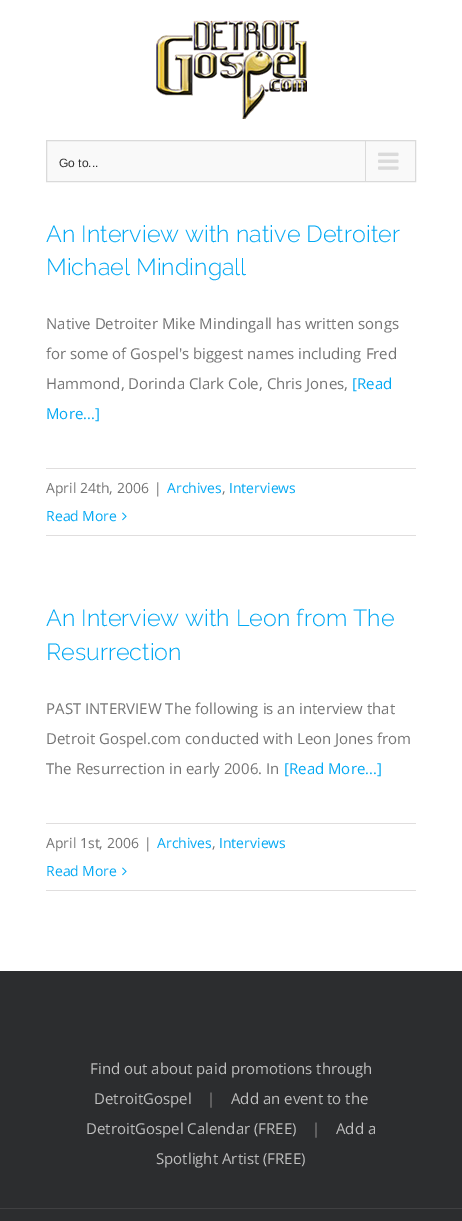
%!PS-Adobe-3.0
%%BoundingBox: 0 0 462 1221
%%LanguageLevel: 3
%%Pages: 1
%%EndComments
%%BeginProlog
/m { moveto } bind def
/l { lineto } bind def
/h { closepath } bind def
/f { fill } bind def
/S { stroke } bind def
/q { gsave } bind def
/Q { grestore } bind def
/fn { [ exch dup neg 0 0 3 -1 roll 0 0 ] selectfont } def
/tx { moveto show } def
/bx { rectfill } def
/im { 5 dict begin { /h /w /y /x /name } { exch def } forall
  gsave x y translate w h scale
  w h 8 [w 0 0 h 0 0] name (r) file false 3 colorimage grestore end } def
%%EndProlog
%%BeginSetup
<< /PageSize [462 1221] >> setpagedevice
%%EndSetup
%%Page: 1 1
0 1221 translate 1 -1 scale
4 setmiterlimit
1 setgray
0 0 462 1221 bx
(image0.raw) 156 20 151 99 im
0.976 setgray
46.5 140.5 m 415.5 140.5 l 415.5 181.5 l 46.5 181.5 l h q f Q
0.855 setgray
S
/LiberationSans-Regular 12 fn
0.2 setgray
(Go to...) 59 167 tx
0.855 setgray
365 141 1 40 bx
(image1.raw) 378 152 21 18 im
/Raleway-Light 23.4 fn
0.012 0.663 0.957 setrgbcolor
(An Interview with native Detroiter) 46 242 tx
(Michael Mindingall) 46 275 tx
/OpenSans-Regular 15 fn
0.455 setgray
(Native Detroiter Mike Mindingall has written songs) 46 329 tx
(for some of Gospel's biggest names including Fred) 46 359 tx
(Hammond, Dorinda Clark Cole, Chris Jones,) 46 389 tx
0.012 0.663 0.957 setrgbcolor
([Read) 352 389 tx
(More...]) 46 419 tx
0.878 0.871 0.871 setrgbcolor
46 468 370 1 bx
46 535 370 1 bx
/OpenSans-Regular 14 fn
0.455 setgray
(April 24th, 2006) 46 493 tx
(|) 154 493 tx
0.012 0.663 0.957 setrgbcolor
(Archives) 167 493 tx
0.455 setgray
(,) 222 493 tx
0.012 0.663 0.957 setrgbcolor
(Interviews) 229 493 tx
(Read More) 46 521 tx
(image2.raw) 122 512 5 9 im
/Raleway-Light 23.4 fn
(An Interview with Leon from The) 46 626 tx
(Resurrection) 46 660 tx
/OpenSans-Regular 15 fn
0.455 setgray
(PAST INTERVIEW The following is an interview that) 46 714 tx
(Detroit Gospel.com conducted with Leon Jones from) 46 744 tx
(The Resurrection in early 2006. In) 46 774 tx
0.012 0.663 0.957 setrgbcolor
([Read More...]) 284 774 tx
0.878 0.871 0.871 setrgbcolor
46 823 370 1 bx
46 890 370 1 bx
/OpenSans-Regular 14 fn
0.455 setgray
(April 1st, 2006) 46 848 tx
(|) 144 848 tx
0.012 0.663 0.957 setrgbcolor
(Archives) 157 848 tx
0.455 setgray
(,) 212 848 tx
0.012 0.663 0.957 setrgbcolor
(Interviews) 219 848 tx
(Read More) 46 876 tx
(image2.raw) 122 867 5 9 im
0.173 0.176 0.184 setrgbcolor
0 971 462 237 bx
/OpenSans-Regular 15 fn
0.749 setgray
(Find out about paid promotions through) 90 1074 tx
(DetroitGospel) 94 1104 tx
0.549 0.537 0.537 setrgbcolor
(|) 207 1104 tx
0.749 setgray
(Add an event to the) 231 1104 tx
(DetroitGospel Calendar \(FREE\)) 86 1134 tx
0.549 0.537 0.537 setrgbcolor
(|) 312 1134 tx
0.749 setgray
(Add a) 336 1134 tx
(Spotlight Artist \(FREE\)) 156 1164 tx
0.173 0.176 0.184 setrgbcolor
0 1209 462 12 bx
0.251 0.251 0.259 setrgbcolor
0 1208 462 1 bx
showpage
%%EOF
